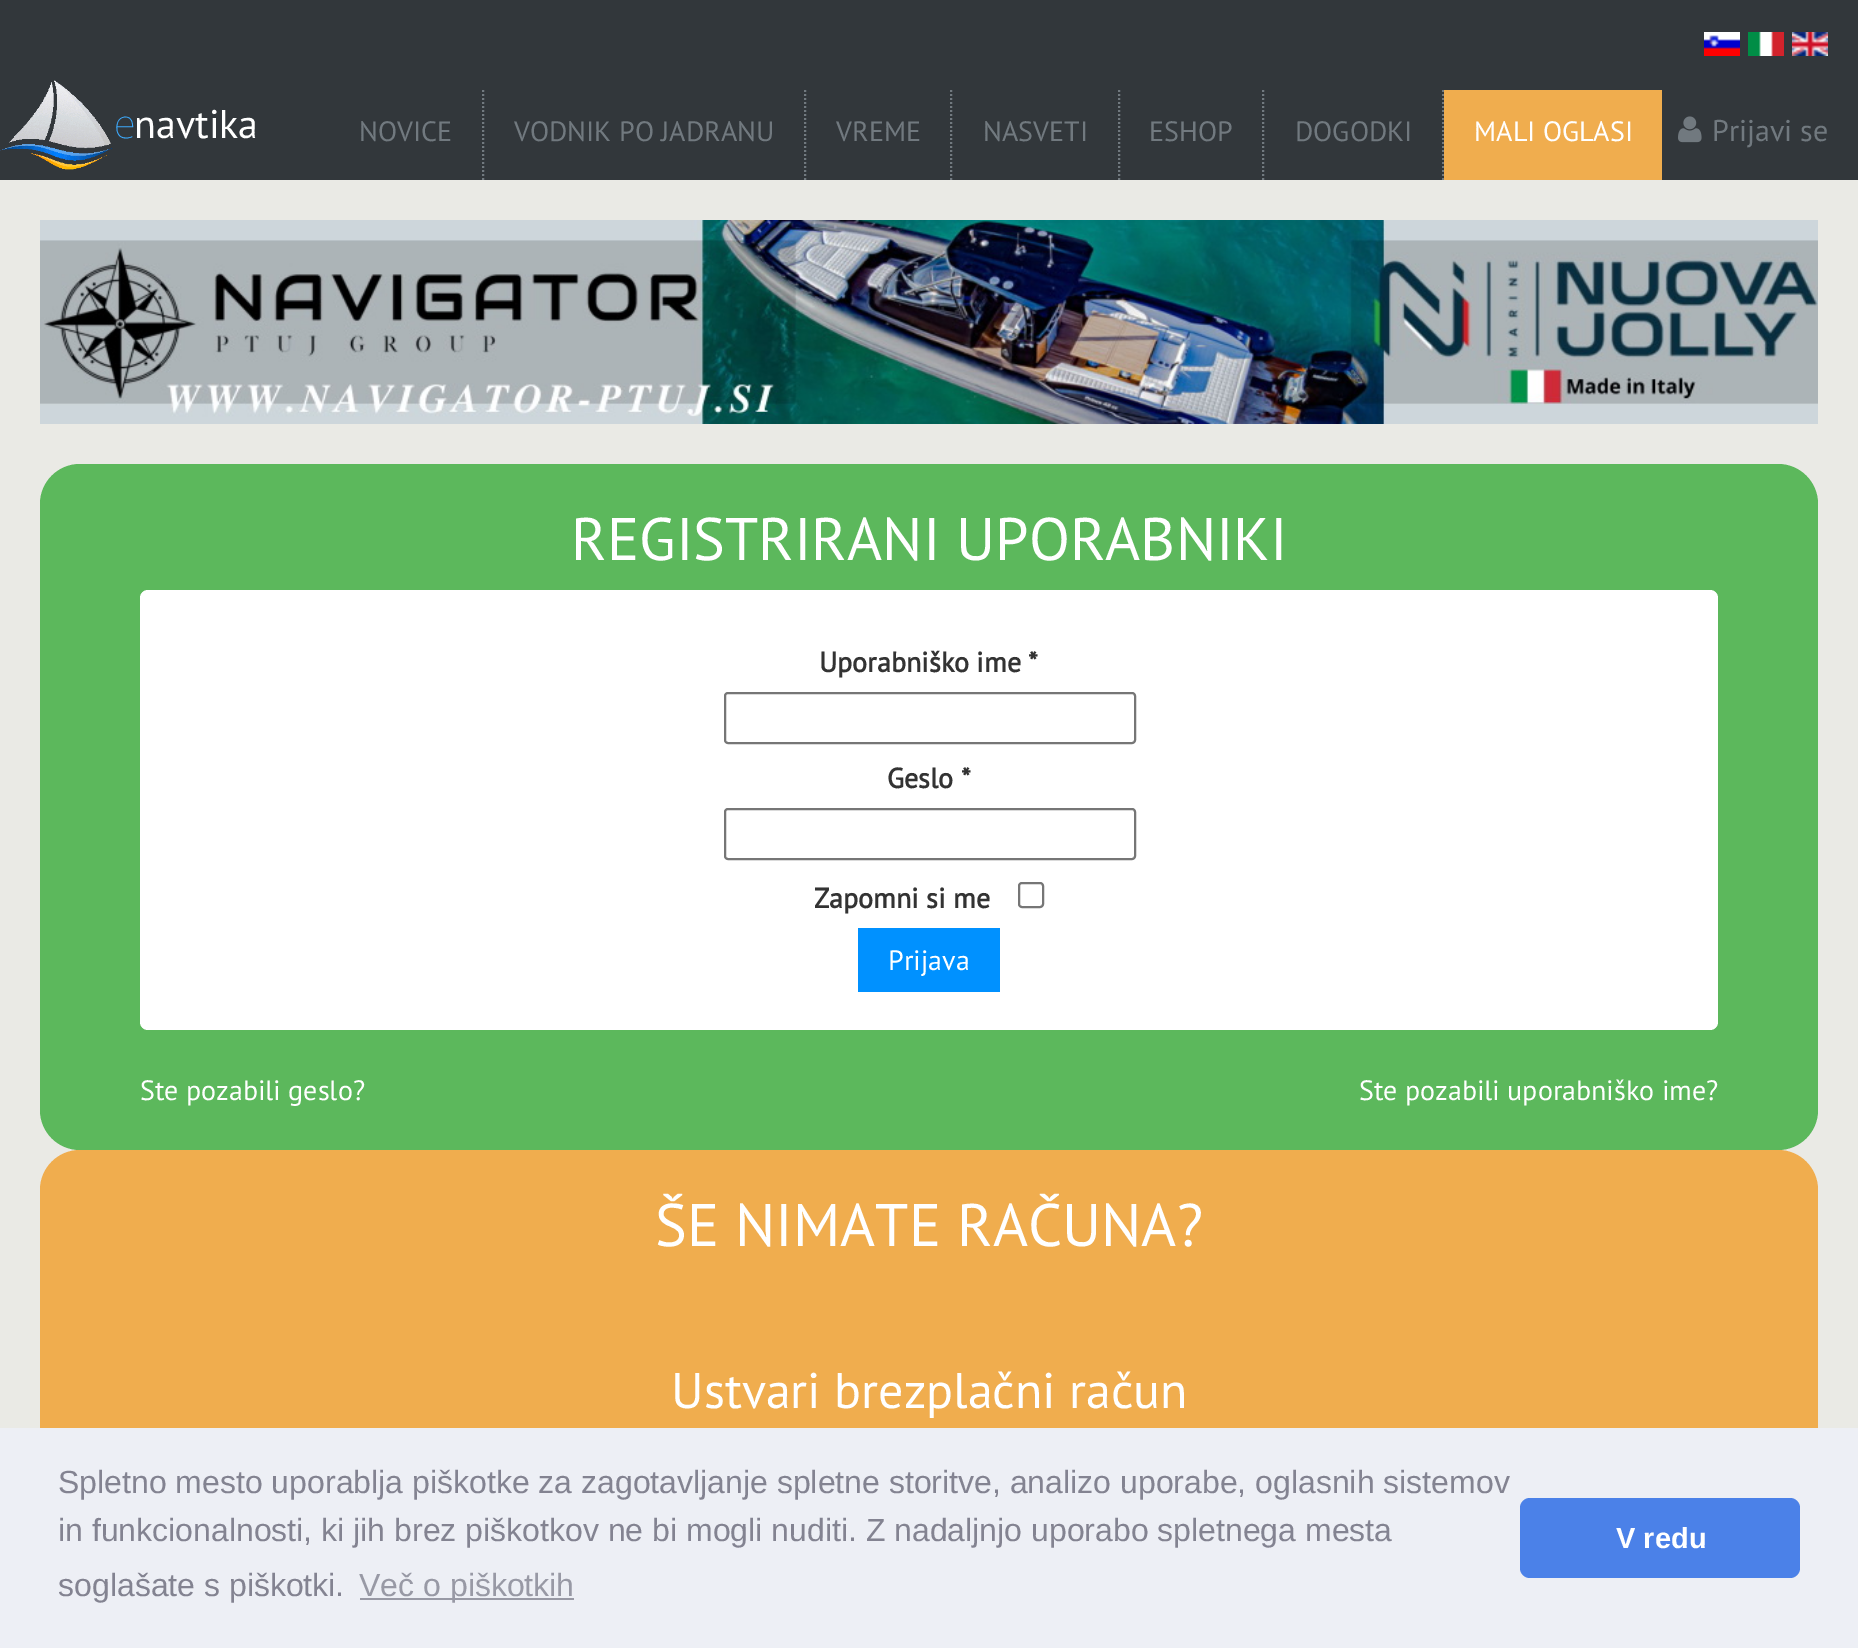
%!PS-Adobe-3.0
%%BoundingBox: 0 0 1858 1648
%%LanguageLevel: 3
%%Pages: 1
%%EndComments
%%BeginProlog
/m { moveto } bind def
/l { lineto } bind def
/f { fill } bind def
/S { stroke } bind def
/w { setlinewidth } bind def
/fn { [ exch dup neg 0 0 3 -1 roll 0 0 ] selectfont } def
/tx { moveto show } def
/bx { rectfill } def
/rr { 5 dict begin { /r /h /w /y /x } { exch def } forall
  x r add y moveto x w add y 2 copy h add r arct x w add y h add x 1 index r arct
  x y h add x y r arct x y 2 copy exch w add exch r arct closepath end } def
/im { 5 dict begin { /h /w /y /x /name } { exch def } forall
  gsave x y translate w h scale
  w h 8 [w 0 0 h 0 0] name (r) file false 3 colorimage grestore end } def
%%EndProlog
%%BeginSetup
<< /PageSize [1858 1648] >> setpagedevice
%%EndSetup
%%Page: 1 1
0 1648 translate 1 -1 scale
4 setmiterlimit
0.918 0.918 0.898 setrgbcolor
0 0 1858 1648 bx
0.196 0.216 0.231 setrgbcolor
0 0 1858 180 bx
(image0.raw) 0 80 112 90 im
/NotoSans-Thin 40 fn
0.239 0.671 1 setrgbcolor
(e) 114 138 tx
/PTSans-Regular 40 fn
1 setgray
(navtika) 134 138 tx
(image1.raw) 1704 32 36 24 im
(image2.raw) 1748 32 36 24 im
(image3.raw) 1792 32 36 24 im
0.443 0.475 0.498 setrgbcolor
2 w
[2 2] 0 setdash
483 90 m 483 180 l S
/PTSans-Regular 28 fn
(NOVICE) 359 141 tx
805 90 m 805 180 l S
(VODNIK PO JADRANU) 514 141 tx
951 90 m 951 180 l S
(VREME) 836 141 tx
1119 90 m 1119 180 l S
(NASVETI) 983 141 tx
1263 90 m 1263 180 l S
(ESHOP) 1149 141 tx
1443 90 m 1443 180 l S
(DOGODKI) 1295 141 tx
0.941 0.678 0.306 setrgbcolor
1444 90 218 90 bx
1 setgray
(MALI OGLASI) 1474 141 tx
(image4.raw) 1678 116 24 27 im
/PTSans-Regular 30 fn
0.443 0.475 0.498 setrgbcolor
(Prijavi se) 1712 141 tx
(image5.raw) 40 220 1778 204 im
0.361 0.722 0.361 setrgbcolor
40 464 1778 686 40 rr f
/PTSans-Regular 60 fn
1 setgray
(REGISTRIRANI UPORABNIKI) 571 560 tx
140 590 1578 440 8 rr f
/PTSans-Bold 28 fn
0.2 setgray
(Uporabniško ime *) 819 672 tx
0.463 setgray
[] 0 setdash
725 693 410 50 3 rr S
0.2 setgray
(Geslo *) 887 788 tx
0.463 setgray
725 809 410 50 3 rr S
0.2 setgray
(Zapomni si me) 814 908 tx
0.463 setgray
1019 883 24 24 3 rr S
0 0.569 1 setrgbcolor
858 928 142 64 bx
/PTSans-Regular 28 fn
1 setgray
(Prijava) 888 970 tx
(Ste pozabili geslo?) 140 1100 tx
(Ste pozabili uporabniško ime?) 1359 1100 tx
0.941 0.678 0.306 setrgbcolor
40 1150 1778 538 40 rr f
/PTSans-Regular 60 fn
1 setgray
(ŠE NIMATE RAČUNA?) 655 1246 tx
/PTSans-Regular 50 fn
(Ustvari brezplačni račun) 671 1408 tx
0.929 0.937 0.961 setrgbcolor
0 1428 1858 220 bx
/LiberationSans-Regular 32 fn
0.514 0.514 0.569 setrgbcolor
(Spletno mesto uporablja piškotke za zagotavljanje spletne storitve, analizo uporabe, oglasnih sistemov) 58 1493 tx
(in funkcionalnosti, ki jih brez piškotkov ne bi mogli nuditi. Z nadaljnjo uporabo spletnega mesta) 58 1541 tx
(soglašate s piškotki.) 58 1596 tx
0.596 0.6 0.647 setrgbcolor
360 1598 214 2 bx
(Več o piškotkih) 359 1596 tx
0.294 0.506 0.91 setrgbcolor
1520 1498 280 80 10 rr f
/LiberationSans-Bold 29 fn
1 setgray
(V redu) 1616 1548 tx
showpage
%%EOF
